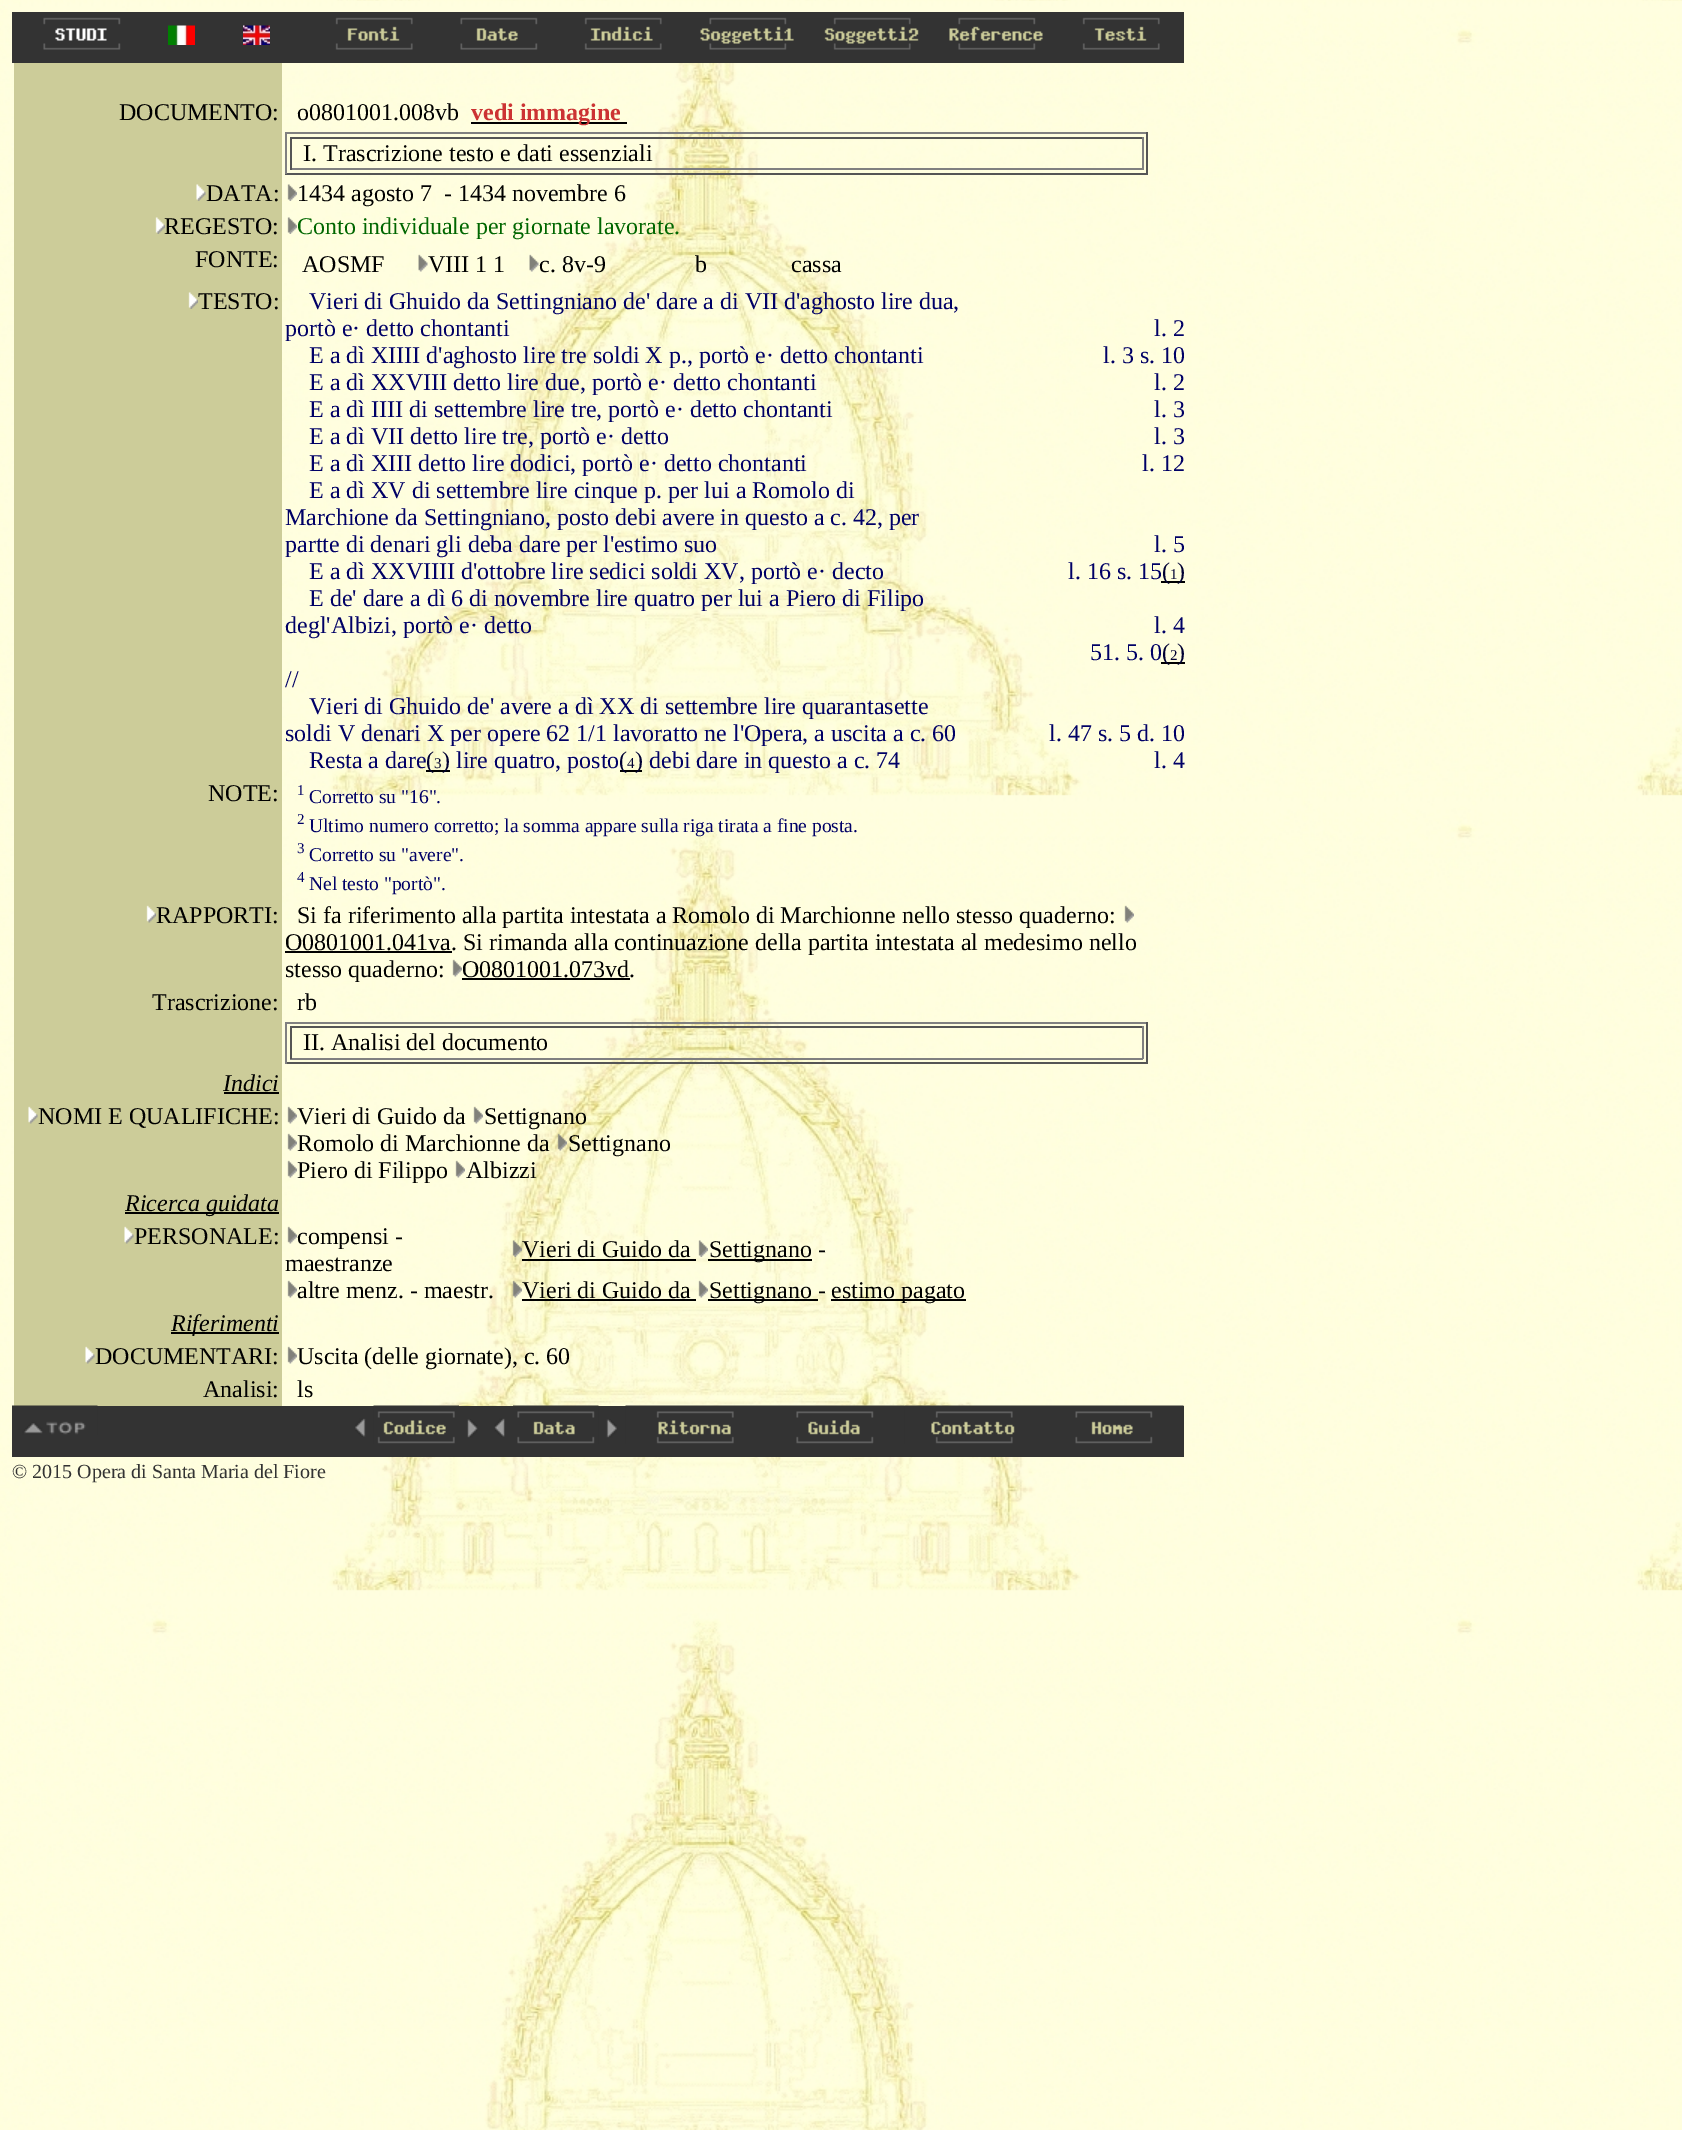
%!PS-Adobe-3.0
%%BoundingBox: 0 0 1682 2130
%%LanguageLevel: 3
%%Pages: 1
%%EndComments
%%BeginProlog
/fn { [ exch dup neg 0 0 3 -1 roll 0 0 ] selectfont } def
/tx { moveto show } def
/bx { rectfill } def
/im { 5 dict begin { /h /w /y /x /name } { exch def } forall
  gsave x y translate w h scale
  w h 8 [w 0 0 h 0 0] name (r) file false 3 colorimage grestore end } def
%%EndProlog
%%BeginSetup
<< /PageSize [1682 2130] >> setpagedevice
%%EndSetup
%%Page: 1 1
0 2130 translate 1 -1 scale
4 setmiterlimit
1 setgray
0 0 1682 2130 bx
(image0.raw) 0 0 1682 2130 im
0.2 setgray
12 12 1172 51 bx
(image1.raw) 43 17 78 33 im
(image2.raw) 168 25 27 20 im
(image3.raw) 243 25 27 20 im
(image4.raw) 335 17 78 33 im
(image5.raw) 460 17 78 33 im
(image6.raw) 584 17 78 33 im
(image7.raw) 700 17 94 33 im
(image8.raw) 824 17 95 33 im
(image9.raw) 949 17 94 33 im
(image10.raw) 1082 17 78 33 im
0.8 0.8 0.6 setrgbcolor
14 63 268 1343 bx
/LiberationSerif-Regular 24 fn
0 setgray
(DOCUMENTO:) 119 120 tx
(o0801001.008vb) 297 120 tx
471 122 156 2 bx
/LiberationSerif-Bold 24 fn
0.8 0.2 0.2 setrgbcolor
(vedi immagine) 471 120 tx
0.502 setgray
285 132 863 2 bx
0.333 setgray
1146 132 2 42 bx
285 173 863 2 bx
0.502 setgray
285 132 2 42 bx
0.333 setgray
290 137 853 2 bx
0.502 setgray
1142 137 2 33 bx
290 168 853 2 bx
0.333 setgray
290 137 2 33 bx
/LiberationSerif-Regular 24 fn
0 setgray
(I. Trascrizione testo e dati essenziali) 303 161 tx
(image11.raw) 196 184 10 17 im
(DATA:) 206 201 tx
(image12.raw) 287 184 10 17 im
(1434 agosto 7  - 1434 novembre 6) 297 201 tx
(image13.raw) 155 217 10 17 im
(REGESTO:) 164 234 tx
(image14.raw) 287 217 10 17 im
0 0.4 0 setrgbcolor
(Conto individuale per giornate lavorate.) 297 234 tx
0 setgray
(FONTE:) 195 267 tx
(AOSMF) 302 272 tx
(image15.raw) 418 254 10 18 im
(VIII 1 1) 428 272 tx
(image16.raw) 529 254 10 18 im
(c. 8v-9) 539 272 tx
(b) 695 272 tx
(cassa) 791 272 tx
(image13.raw) 188 292 10 17 im
(TESTO:) 198 309 tx
0 0 0.4 setrgbcolor
(Vieri di Ghuido da Settingniano de' dare a di VII d'aghosto lire dua,) 309 309 tx
(portò e· detto chontanti) 285 336 tx
(l. 2) 1154 336 tx
(E a dì XIIII d'aghosto lire tre soldi X p., portò e· detto chontanti) 309 363 tx
(l. 3 s. 10) 1103 363 tx
(E a dì XXVIII detto lire due, portò e· detto chontanti) 309 390 tx
(l. 2) 1154 390 tx
(E a dì IIII di settembre lire tre, portò e· detto chontanti) 309 417 tx
(l. 3) 1154 417 tx
(E a dì VII detto lire tre, portò e· detto) 309 444 tx
(l. 3) 1154 444 tx
(E a dì XIII detto lire dodici, portò e· detto chontanti) 309 471 tx
(l. 12) 1142 471 tx
(E a dì XV di settembre lire cinque p. per lui a Romolo di) 309 498 tx
(Marchione da Settingniano, posto debi avere in questo a c. 42, per) 285 525 tx
(partte di denari gli deba dare per l'estimo suo) 285 552 tx
(l. 5) 1154 552 tx
(E a dì XXVIIII d'ottobre lire sedici soldi XV, portò e· decto) 309 579 tx
(l. 16 s. 15) 1068 579 tx
0 setgray
1161 581 24 2 bx
0 0 0.2 setrgbcolor
(\() 1162 579 tx
/LiberationSerif-Regular 15 fn
(1) 1170 579 tx
/LiberationSerif-Regular 24 fn
(\)) 1177 579 tx
0 0 0.4 setrgbcolor
(E de' dare a dì 6 di novembre lire quatro per lui a Piero di Filipo) 309 606 tx
(degl'Albizi, portò e· detto) 285 633 tx
(l. 4) 1154 633 tx
(51. 5. 0) 1090 660 tx
0 setgray
1161 662 24 2 bx
0 0 0.2 setrgbcolor
(\() 1162 660 tx
/LiberationSerif-Regular 15 fn
(2) 1170 660 tx
/LiberationSerif-Regular 24 fn
(\)) 1177 660 tx
0 0 0.4 setrgbcolor
(//) 285 687 tx
(Vieri di Ghuido de' avere a dì XX di settembre lire quarantasette) 309 714 tx
(soldi V denari X per opere 62 1/1 lavoratto ne l'Opera, a uscita a c. 60) 285 741 tx
(l. 47 s. 5 d. 10) 1049 741 tx
(Resta a dare) 309 768 tx
0 setgray
426 770 24 2 bx
0 0 0.2 setrgbcolor
(\() 426 768 tx
/LiberationSerif-Regular 15 fn
(3) 434 768 tx
/LiberationSerif-Regular 24 fn
(\)) 442 768 tx
0 0 0.4 setrgbcolor
(lire quatro, posto) 456 768 tx
0 setgray
620 770 22 2 bx
0 0 0.2 setrgbcolor
(\() 619 768 tx
/LiberationSerif-Regular 15 fn
(4) 627 768 tx
/LiberationSerif-Regular 24 fn
(\)) 635 768 tx
0 0 0.4 setrgbcolor
(debi dare in questo a c. 74) 649 768 tx
(l. 4) 1154 768 tx
0 setgray
(NOTE:) 208 801 tx
/LiberationSerif-Regular 15 fn
0 0 0.4 setrgbcolor
(1) 297 795 tx
/LiberationSerif-Regular 19.5 fn
(Corretto su "16".) 309 803 tx
/LiberationSerif-Regular 15 fn
(2) 297 824 tx
/LiberationSerif-Regular 19.5 fn
(Ultimo numero corretto; la somma appare sulla riga tirata a fine posta.) 309 832 tx
/LiberationSerif-Regular 15 fn
(3) 297 853 tx
/LiberationSerif-Regular 19.5 fn
(Corretto su "avere".) 309 861 tx
/LiberationSerif-Regular 15 fn
(4) 297 882 tx
/LiberationSerif-Regular 19.5 fn
(Nel testo "portò".) 309 890 tx
(image17.raw) 146 905 10 18 im
/LiberationSerif-Regular 24 fn
0 setgray
(RAPPORTI:) 156 923 tx
(Si fa riferimento alla partita intestata a Romolo di Marchionne nello stesso quaderno:) 297 923 tx
(image18.raw) 1124 905 10 18 im
285 951 167 2 bx
(O0801001.041va. Si rimanda alla continuazione della partita intestata al medesimo nello) 285 950 tx
(stesso quaderno:) 285 977 tx
(image19.raw) 452 959 10 18 im
(O0801001.073vd.) 462 977 tx
462 978 168 2 bx
(Trascrizione:) 152 1010 tx
(rb) 297 1010 tx
0.502 setgray
285 1022 863 2 bx
0.333 setgray
1146 1022 2 42 bx
285 1062 863 2 bx
0.502 setgray
285 1022 2 42 bx
0.333 setgray
290 1026 853 2 bx
0.502 setgray
1142 1026 2 33 bx
290 1058 853 2 bx
0.333 setgray
290 1026 2 33 bx
0 setgray
(II. Analisi del documento) 303 1050 tx
/LiberationSerif-Italic 24 fn
(Indici) 223 1091 tx
224 1092 55 2 bx
(image20.raw) 28 1106 10 18 im
/LiberationSerif-Regular 24 fn
(NOMI E QUALIFICHE:) 38 1124 tx
(image21.raw) 287 1106 10 18 im
(Vieri di Guido da) 297 1124 tx
(image22.raw) 473 1106 10 18 im
(Settignano) 484 1124 tx
(image23.raw) 287 1133 10 18 im
(Romolo di Marchionne da) 297 1151 tx
(image24.raw) 557 1133 10 18 im
(Settignano) 568 1151 tx
(image25.raw) 287 1160 10 18 im
(Piero di Filippo) 297 1178 tx
(image26.raw) 455 1160 10 18 im
(Albizzi) 466 1178 tx
125 1212 154 2 bx
/LiberationSerif-Italic 24 fn
(Ricerca guidata) 125 1211 tx
(image20.raw) 124 1226 10 18 im
/LiberationSerif-Regular 24 fn
(PERSONALE:) 134 1244 tx
(image27.raw) 287 1226 10 18 im
(compensi -) 297 1244 tx
(maestranze) 285 1271 tx
(image28.raw) 512 1240 10 17 im
(Vieri di Guido da) 522 1257 tx
522 1259 174 2 bx
(image29.raw) 698 1240 10 17 im
708 1259 104 2 bx
(Settignano -) 709 1257 tx
(image30.raw) 287 1280 10 18 im
(altre menz. - maestr.) 297 1298 tx
(image31.raw) 512 1280 10 18 im
(Vieri di Guido da) 522 1298 tx
522 1299 174 2 bx
(image32.raw) 698 1280 10 18 im
708 1299 110 2 bx
(Settignano -) 709 1298 tx
831 1299 135 2 bx
(estimo pagato) 831 1298 tx
171 1332 108 2 bx
/LiberationSerif-Italic 24 fn
(Riferimenti) 171 1331 tx
(image20.raw) 85 1346 10 18 im
/LiberationSerif-Regular 24 fn
(DOCUMENTARI:) 95 1364 tx
(image33.raw) 287 1346 10 18 im
(Uscita \(delle giornate\), c. 60) 297 1364 tx
(Analisi:) 203 1397 tx
(ls) 297 1397 tx
0.2 setgray
12 1406 1172 51 bx
(image34.raw) 12 1405 86 30 im
(image35.raw) 355 1418 11 19 im
(image36.raw) 373 1405 86 39 im
(image37.raw) 467 1419 11 19 im
(image38.raw) 494 1418 11 19 im
(image39.raw) 513 1405 86 39 im
(image40.raw) 606 1419 11 19 im
(image41.raw) 625 1405 140 39 im
(image42.raw) 765 1405 140 39 im
(image43.raw) 904 1405 140 39 im
(image44.raw) 1044 1405 140 39 im
/LiberationSerif-Regular 20 fn
(© 2015 Opera di Santa Maria del Fiore) 12 1478 tx
showpage
%%EOF
